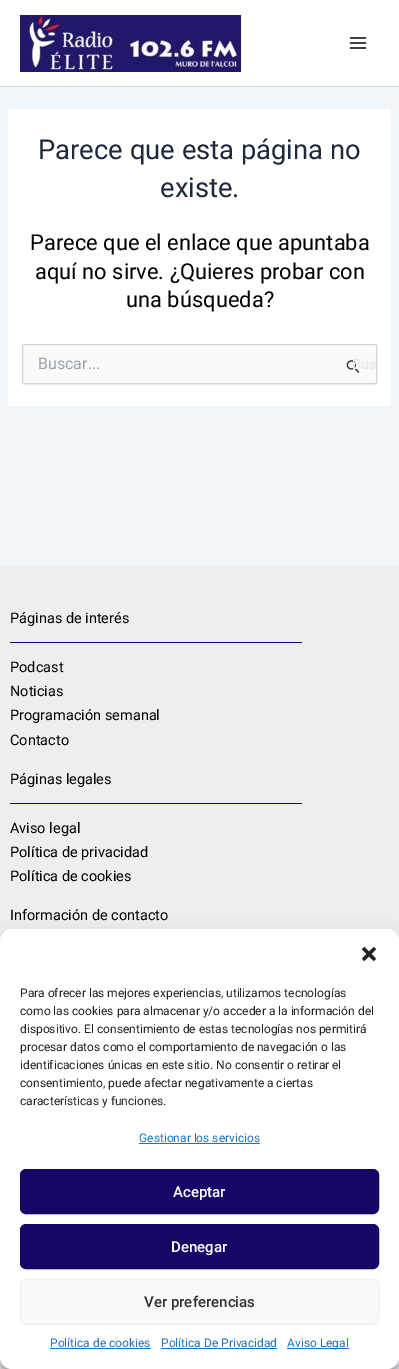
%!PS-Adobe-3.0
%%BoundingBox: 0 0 399 1369
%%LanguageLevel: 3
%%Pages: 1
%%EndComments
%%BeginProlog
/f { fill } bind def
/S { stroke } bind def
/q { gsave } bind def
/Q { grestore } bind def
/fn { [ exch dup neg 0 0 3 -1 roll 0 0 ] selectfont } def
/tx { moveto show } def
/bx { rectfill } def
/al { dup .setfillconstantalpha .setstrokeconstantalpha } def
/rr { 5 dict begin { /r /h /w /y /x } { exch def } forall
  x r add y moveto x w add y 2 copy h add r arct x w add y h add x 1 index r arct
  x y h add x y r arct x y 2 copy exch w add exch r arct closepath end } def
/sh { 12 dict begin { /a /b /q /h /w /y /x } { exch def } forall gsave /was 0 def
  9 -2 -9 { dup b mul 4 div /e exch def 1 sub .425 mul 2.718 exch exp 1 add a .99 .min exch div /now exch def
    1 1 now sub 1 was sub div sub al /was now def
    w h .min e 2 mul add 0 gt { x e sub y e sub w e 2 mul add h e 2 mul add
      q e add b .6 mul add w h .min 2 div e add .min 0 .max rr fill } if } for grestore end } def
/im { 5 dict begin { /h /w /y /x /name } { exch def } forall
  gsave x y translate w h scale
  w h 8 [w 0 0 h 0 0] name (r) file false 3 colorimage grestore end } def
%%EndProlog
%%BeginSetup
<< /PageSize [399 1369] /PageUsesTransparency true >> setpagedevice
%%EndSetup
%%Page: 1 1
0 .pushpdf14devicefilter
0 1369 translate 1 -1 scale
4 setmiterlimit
0.941 0.961 0.98 setrgbcolor
0 0 399 1369 bx
1 setgray
0 0 399 86 bx
0.82 0.835 0.859 setrgbcolor
0 86 399 1 bx
(image0.raw) 20 15 221 57 im
(image1.raw) 349 37 18 12 im
1 setgray
8 109 383 297 bx
/Roboto-Regular 27.4 fn
0.118 0.161 0.231 setrgbcolor
(Parece que esta página no) 38 159 tx
(existe.) 160 197 tx
/Roboto-Regular 21.9 fn
0.004 setgray
(Parece que el enlace que apuntaba) 30 250 tx
(aquí no sirve. ¿Quieres probar con) 35 279 tx
(una búsqueda?) 126 307 tx
0 setgray
22 345 355 40 2 1 0.05 sh
0.98 setgray
22.5 344.5 354 39 1.5 rr q f Q
0.82 0.835 0.859 setrgbcolor
S
/Roboto-Regular 16 fn
0.612 0.639 0.686 setrgbcolor
(Buscar...) 38 369 tx
(image2.raw) 346 360 14 13 im
/Roboto-Medium 14.5 fn
0.914 setgray
(Bus) 352 369 tx
0.933 setgray
0 566 399 375 bx
/Roboto-Regular 14.5 fn
0.004 setgray
(Páginas de interés) 10 623 tx
0.078 0.027 0.404 setrgbcolor
10 642 292 1 bx
0.004 setgray
(Podcast) 10 672 tx
(Noticias) 10 696 tx
(Programación semanal) 10 720 tx
(Contacto) 10 745 tx
(Páginas legales) 10 784 tx
0.078 0.027 0.404 setrgbcolor
10 803 292 1 bx
0.004 setgray
(Aviso legal) 10 833 tx
(Política de privacidad) 10 857 tx
(Política de cookies) 10 881 tx
(Información de contacto) 10 920 tx
0 setgray
0 935 399 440 12 3 0.23 sh
0 939 399 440 12 10 0.19 sh
1 setgray
0 929 399 440 12 rr f
(image3.raw) 362 947 14 14 im
/Roboto-Regular 12 fn
0.133 setgray
(Para ofrecer las mejores experiencias, utilizamos tecnologías) 20 997 tx
(como las cookies para almacenar y/o acceder a la información del) 20 1015 tx
(dispositivo. El consentimiento de estas tecnologías nos permitirá) 20 1033 tx
(procesar datos como el comportamiento de navegación o las) 20 1051 tx
(identificaciones únicas en este sitio. No consentir o retirar el) 20 1069 tx
(consentimiento, puede afectar negativamente a ciertas) 20 1087 tx
(características y funciones.) 20 1105 tx
0.118 0.451 0.745 setrgbcolor
(Gestionar los servicios) 139 1142 tx
139 1143 121 1 bx
0 setgray
20 1170 359 45 6 1 0.05 sh
0.078 0.027 0.404 setrgbcolor
20.5 1169.5 358 44 5.5 rr q f Q
S
/Roboto-Medium 15 fn
1 setgray
(Aceptar) 173 1197 tx
0 setgray
20 1225 359 45 6 1 0.05 sh
0.078 0.027 0.404 setrgbcolor
20.5 1224.5 358 44 5.5 rr q f Q
S
1 setgray
(Denegar) 171 1252 tx
0 setgray
20 1280 359 45 6 1 0.05 sh
0.976 setgray
20.5 1279.5 358 44 5.5 rr q f Q
0.949 setgray
S
0.2 setgray
(Ver preferencias) 144 1307 tx
/Roboto-Regular 12 fn
0.118 0.451 0.745 setrgbcolor
(Política de cookies) 50 1347 tx
50 1348 101 1 bx
(Política De Privacidad) 161 1347 tx
161 1348 116 1 bx
287 1348 62 1 bx
(Aviso Legal) 287 1347 tx
.poppdf14devicefilter showpage
%%EOF
